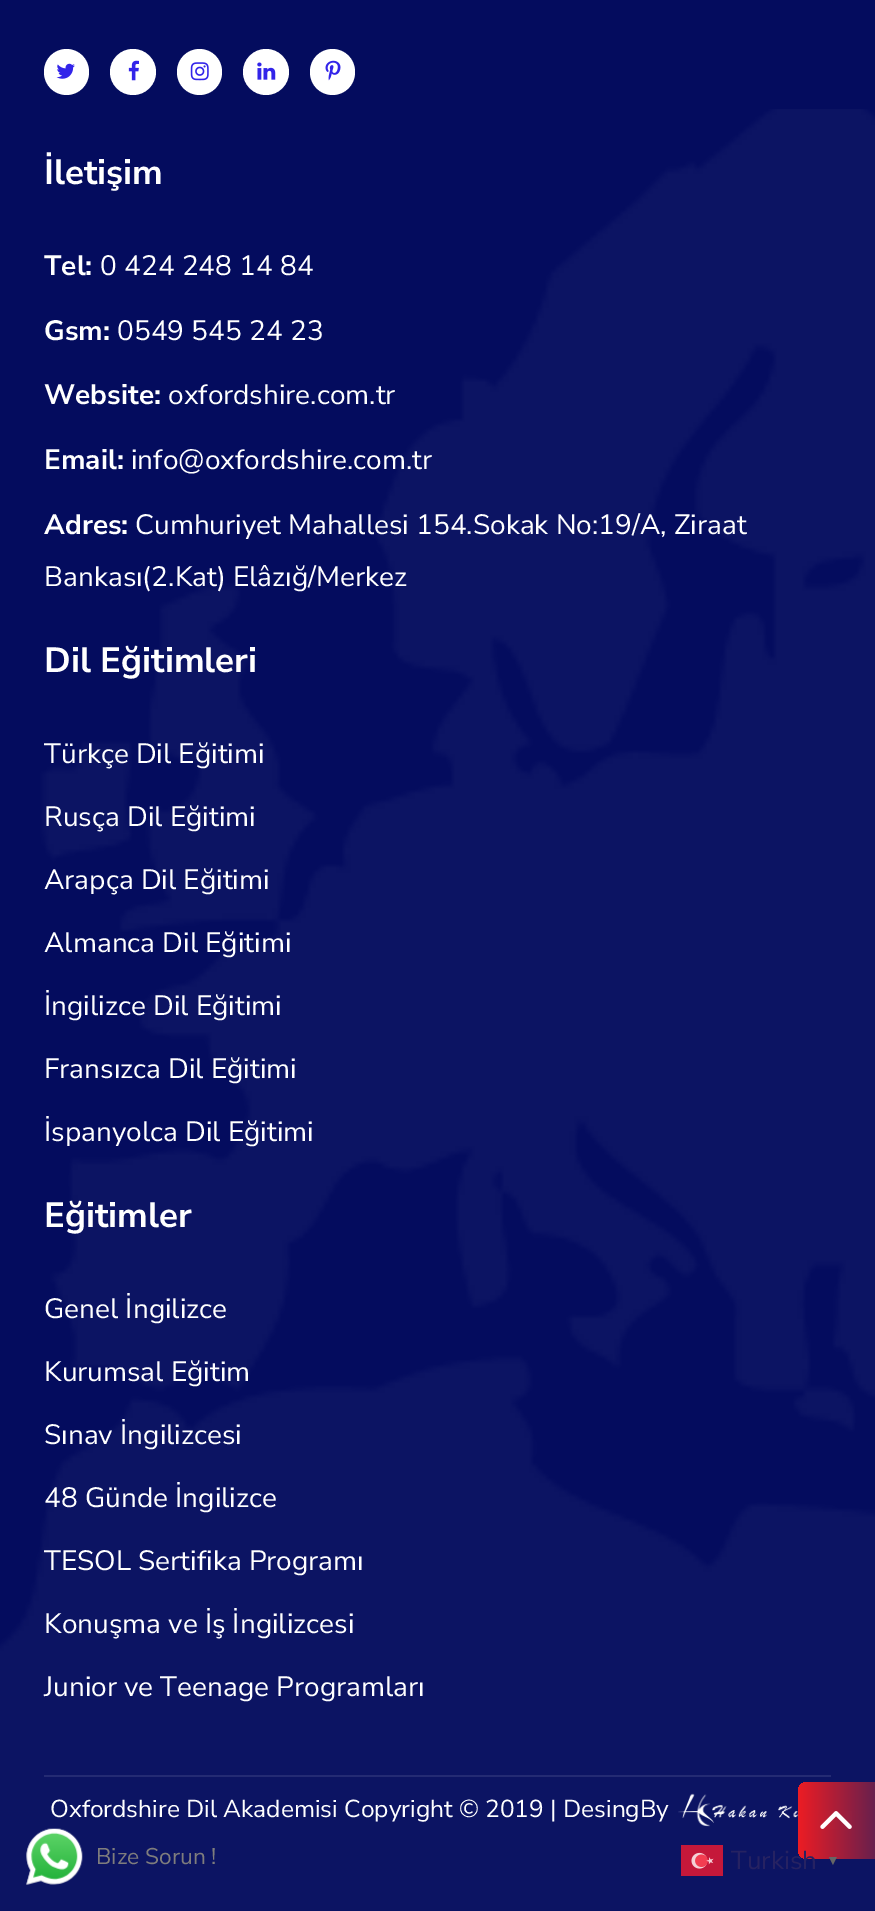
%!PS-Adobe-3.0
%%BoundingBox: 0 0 875 1911
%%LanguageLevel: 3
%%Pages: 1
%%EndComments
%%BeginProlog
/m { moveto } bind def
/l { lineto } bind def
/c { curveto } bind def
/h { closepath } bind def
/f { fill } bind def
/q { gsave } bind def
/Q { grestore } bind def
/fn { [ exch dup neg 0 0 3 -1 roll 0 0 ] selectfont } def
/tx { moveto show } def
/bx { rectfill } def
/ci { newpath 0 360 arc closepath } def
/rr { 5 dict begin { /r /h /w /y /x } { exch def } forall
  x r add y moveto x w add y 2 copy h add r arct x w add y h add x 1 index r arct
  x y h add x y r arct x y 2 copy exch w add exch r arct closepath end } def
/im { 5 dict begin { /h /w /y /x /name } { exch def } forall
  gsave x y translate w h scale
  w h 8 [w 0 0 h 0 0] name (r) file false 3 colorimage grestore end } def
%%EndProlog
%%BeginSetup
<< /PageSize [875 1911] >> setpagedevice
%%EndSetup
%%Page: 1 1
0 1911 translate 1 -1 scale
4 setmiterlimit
0.016 0.047 0.369 setrgbcolor
0 0 875 1911 bx
(image0.raw) 0 109 875 1802 im
1 setgray
44 49 45 46 22.5 rr f
(image1.raw) 56 63 19 16 im
133 72 23 ci f
(image2.raw) 128 60 11 21 im
177 49 45 46 22.5 rr f
(image3.raw) 190 62 19 19 im
266 72 23 ci f
(image4.raw) 257 62 19 18 im
310 49 45 46 22.5 rr f
(image5.raw) 325 60 16 21 im
/NunitoSans-Bold 35 fn
(İletişim) 44 184 tx
/NunitoSans-Bold 28 fn
(Tel:) 44 275 tx
/NunitoSans-Regular 28 fn
(0 424 248 14 84) 100 275 tx
/NunitoSans-Bold 28 fn
(Gsm:) 44 340 tx
/NunitoSans-Regular 28 fn
(0549 545 24 23) 117 340 tx
/NunitoSans-Bold 28 fn
(Website:) 44 404 tx
/NunitoSans-Regular 28 fn
(oxfordshire.com.tr) 168 404 tx
/NunitoSans-Bold 28 fn
(Email:) 44 469 tx
/NunitoSans-Regular 28 fn
(info@oxfordshire.com.tr) 131 469 tx
/NunitoSans-Bold 28 fn
(Adres:) 44 534 tx
/NunitoSans-Regular 28 fn
(Cumhuriyet Mahallesi 154.Sokak No:19/A, Ziraat) 135 534 tx
(Bankası\(2.Kat\) Elâzığ/Merkez) 44 586 tx
/NunitoSans-Bold 35 fn
(Dil Eğitimleri) 44 672 tx
/NunitoSans-Regular 28 fn
(Türkçe Dil Eğitimi) 44 763 tx
(Rusça Dil Eğitimi) 44 826 tx
(Arapça Dil Eğitimi) 44 889 tx
(Almanca Dil Eğitimi) 44 952 tx
(İngilizce Dil Eğitimi) 44 1015 tx
(Fransızca Dil Eğitimi) 44 1078 tx
(İspanyolca Dil Eğitimi) 44 1141 tx
/NunitoSans-Bold 35 fn
(Eğitimler) 44 1227 tx
/NunitoSans-Regular 28 fn
(Genel İngilizce) 44 1318 tx
(Kurumsal Eğitim) 44 1381 tx
(Sınav İngilizcesi) 44 1444 tx
(48 Günde İngilizce) 44 1507 tx
(TESOL Sertifika Programı) 44 1570 tx
(Konuşma ve İş İngilizcesi) 44 1633 tx
(Junior ve Teenage Programları) 44 1696 tx
0.141 0.169 0.451 setrgbcolor
44 1775 787 2 bx
/NunitoSans-Regular 24.5 fn
1 setgray
(Oxfordshire Dil Akademisi Copyright © 2019 | DesingBy) 50 1817 tx
(image6.raw) 678 1793 120 34 im
q 807 1782 m 875 1782 l 875 1859 l 807 1859 l 802 1859 798 1855 798 1850 c 798 1791 l 798 1786 802 1782 807 1782 c h clip newpath
<< /ShadingType 2 /ColorSpace /DeviceRGB /Coords [798 1820 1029 1820] /Extend [true true] /Function << /FunctionType 3 /Domain [0 1] /Functions [<< /FunctionType 2 /Domain [0 1] /C0 [0.929 0.11 0.141] /C1 [0.149 0.133 0.384] /N 1 >> << /FunctionType 2 /Domain [0 1] /C0 [0.149 0.133 0.384] /C1 [0.929 0.11 0.141] /N 1 >>] /Bounds [0.5] /Encode [0 1 0 1] >> >> shfill Q
(image7.raw) 820 1811 32 18 im
(image8.raw) 26 1828 57 57 im
/NunitoSans-Regular 22.75 fn
0.498 0.49 0.49 setrgbcolor
(Bize Sorun !) 96 1864 tx
(image9.raw) 681 1845 42 31 im
/NunitoSans-Regular 26 fn
0.149 0.133 0.384 setrgbcolor
(Turkish) 731 1869 tx
/LiberationSerif-Bold 14 fn
0.4 setgray
(▼) 826 1865 tx
showpage
%%EOF
